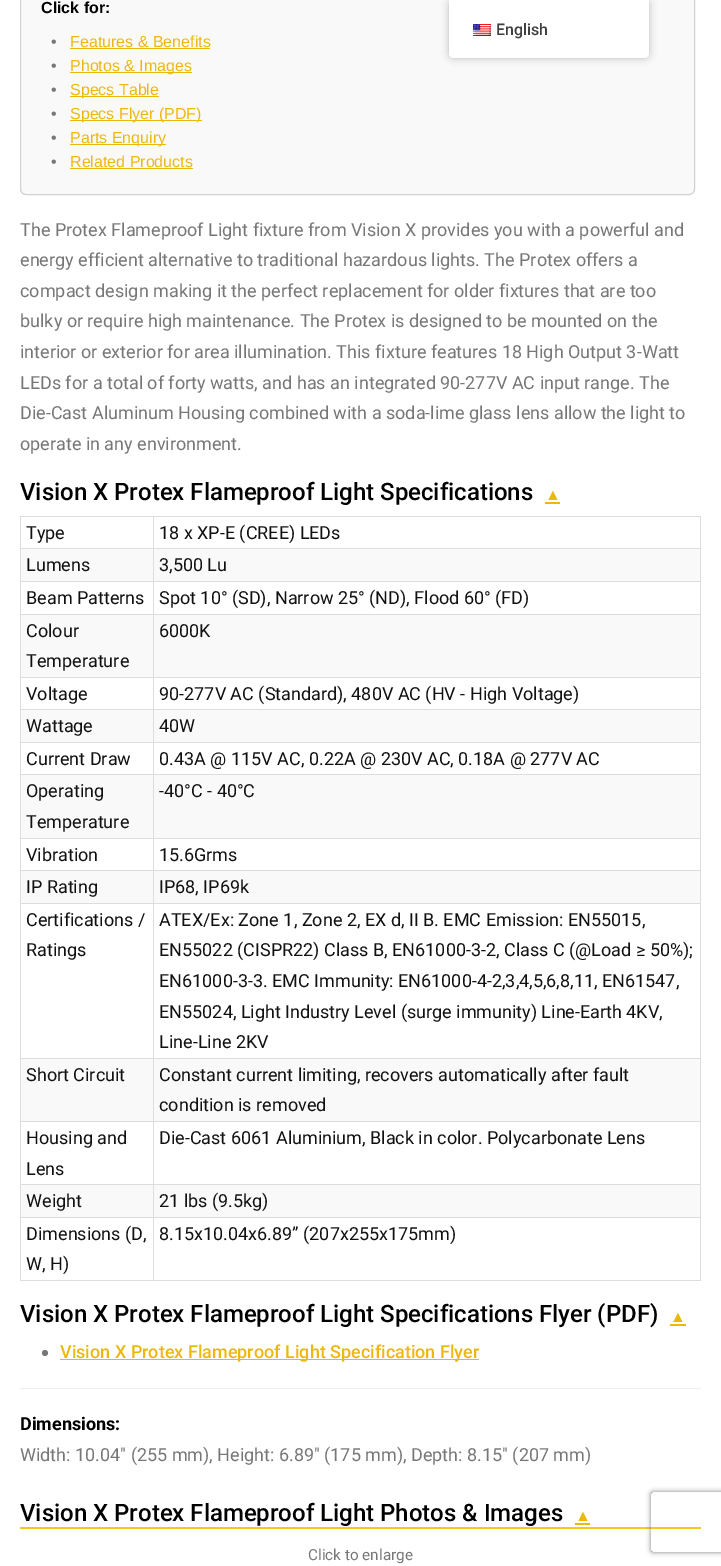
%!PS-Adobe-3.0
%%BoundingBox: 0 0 721 1566
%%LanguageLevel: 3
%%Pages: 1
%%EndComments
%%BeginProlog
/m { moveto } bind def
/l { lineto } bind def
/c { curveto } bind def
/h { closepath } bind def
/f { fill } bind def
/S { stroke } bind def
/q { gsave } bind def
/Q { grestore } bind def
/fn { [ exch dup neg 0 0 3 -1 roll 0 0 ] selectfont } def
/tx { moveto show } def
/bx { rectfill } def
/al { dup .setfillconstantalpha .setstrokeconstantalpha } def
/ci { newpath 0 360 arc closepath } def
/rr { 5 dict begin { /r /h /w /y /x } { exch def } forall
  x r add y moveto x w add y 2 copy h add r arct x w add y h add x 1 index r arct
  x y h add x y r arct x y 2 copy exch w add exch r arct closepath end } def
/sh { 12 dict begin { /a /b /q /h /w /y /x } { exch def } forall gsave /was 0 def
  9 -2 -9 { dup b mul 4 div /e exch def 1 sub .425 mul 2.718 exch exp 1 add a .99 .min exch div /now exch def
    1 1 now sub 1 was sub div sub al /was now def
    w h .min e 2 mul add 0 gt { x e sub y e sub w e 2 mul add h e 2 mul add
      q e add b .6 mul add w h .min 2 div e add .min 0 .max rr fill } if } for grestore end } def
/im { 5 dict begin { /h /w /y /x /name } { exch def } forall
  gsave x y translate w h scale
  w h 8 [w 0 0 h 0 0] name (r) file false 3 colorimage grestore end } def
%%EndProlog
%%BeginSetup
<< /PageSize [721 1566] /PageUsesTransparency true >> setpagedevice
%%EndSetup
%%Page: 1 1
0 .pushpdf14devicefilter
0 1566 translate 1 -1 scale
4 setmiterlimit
1 setgray
0 0 721 1566 bx
0.976 setgray
20.5 -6.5 674 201 5.5 rr q f Q
0.824 setgray
S
/LiberationSans-Bold 16 fn
0 setgray
(Click for:) 41 13 tx
/LiberationSans-Regular 16 fn
0.467 setgray
(•) 51 47 tx
0.922 0.725 0.051 setrgbcolor
(Features & Benefits) 70 47 tx
70 48 140 1 bx
0.467 setgray
(•) 51 71 tx
0.922 0.725 0.051 setrgbcolor
70 72 122 1 bx
(Photos & Images) 70 71 tx
0.467 setgray
(•) 51 95 tx
0.922 0.725 0.051 setrgbcolor
70 96 89 1 bx
(Specs Table) 70 95 tx
0.467 setgray
(•) 51 119 tx
0.922 0.725 0.051 setrgbcolor
70 120 132 1 bx
(Specs Flyer \(PDF\)) 70 119 tx
0.467 setgray
(•) 51 143 tx
0.922 0.725 0.051 setrgbcolor
70 144 96 1 bx
(Parts Enquiry) 70 143 tx
0.467 setgray
(•) 51 167 tx
0.922 0.725 0.051 setrgbcolor
(Related Products) 70 167 tx
70 168 123 1 bx
/Roboto-Regular 18 fn
0.467 setgray
(The Protex Flameproof Light fixture from Vision X provides you with a powerful and) 20 236 tx
(energy efficient alternative to traditional hazardous lights. The Protex offers a) 20 266 tx
(compact design making it the perfect replacement for older fixtures that are too) 20 297 tx
(bulky or require high maintenance. The Protex is designed to be mounted on the) 20 327 tx
(interior or exterior for area illumination. This fixture features 18 High Output 3-Watt) 20 358 tx
(LEDs for a total of forty watts, and has an integrated 90-277V AC input range. The) 20 389 tx
(Die-Cast Aluminum Housing combined with a soda-lime glass lens allow the light to) 20 419 tx
(operate in any environment.) 20 450 tx
/Roboto-Medium 24 fn
0 setgray
(Vision X Protex Flameproof Light Specifications) 20 500 tx
/LiberationSans-Regular 16 fn
0.922 0.725 0.051 setrgbcolor
(▲) 545 500 tx
545 502 15 2 bx
0.867 setgray
20 516 681 1 bx
700 516 1 765 bx
20 1280 681 1 bx
20 516 1 765 bx
/Roboto-Regular 18 fn
0.067 setgray
(Type) 26 539 tx
(18 x XP-E \(CREE\) LEDs) 159 539 tx
0.867 setgray
20 548 681 1 bx
0.976 setgray
21 549 132 32 bx
0.067 setgray
(Lumens) 26 571 tx
0.976 setgray
154 549 546 32 bx
0.067 setgray
(3,500 Lu) 159 571 tx
0.867 setgray
20 581 681 1 bx
0.067 setgray
(Beam Patterns) 26 604 tx
(Spot 10° \(SD\), Narrow 25° \(ND\), Flood 60° \(FD\)) 159 604 tx
0.867 setgray
20 614 681 1 bx
0.976 setgray
21 615 132 62 bx
0.067 setgray
(Colour) 26 637 tx
(Temperature) 26 667 tx
0.976 setgray
154 615 546 62 bx
0.067 setgray
(6000K) 159 637 tx
0.867 setgray
20 677 681 1 bx
0.067 setgray
(Voltage) 26 700 tx
(90-277V AC \(Standard\), 480V AC \(HV - High Voltage\)) 159 700 tx
0.867 setgray
20 709 681 1 bx
0.976 setgray
21 710 132 32 bx
0.067 setgray
(Wattage) 26 732 tx
0.976 setgray
154 710 546 32 bx
0.067 setgray
(40W) 159 732 tx
0.867 setgray
20 742 681 1 bx
0.067 setgray
(Current Draw) 26 765 tx
(0.43A @ 115V AC, 0.22A @ 230V AC, 0.18A @ 277V AC) 159 765 tx
0.867 setgray
20 774 681 1 bx
0.976 setgray
21 775 132 63 bx
0.067 setgray
(Operating) 26 797 tx
(Temperature) 26 828 tx
0.976 setgray
154 775 546 63 bx
0.067 setgray
(-40°C - 40°C) 159 797 tx
0.867 setgray
20 838 681 1 bx
0.067 setgray
(Vibration) 26 861 tx
(15.6Grms) 159 861 tx
0.867 setgray
20 870 681 1 bx
0.976 setgray
21 871 132 32 bx
0.067 setgray
(IP Rating) 26 893 tx
0.976 setgray
154 871 546 32 bx
0.067 setgray
(IP68, IP69k) 159 893 tx
0.867 setgray
20 903 681 1 bx
0.067 setgray
(Certifications /) 26 926 tx
(Ratings) 26 956 tx
(ATEX/Ex: Zone 1, Zone 2, EX d, II B. EMC Emission: EN55015,) 159 926 tx
(EN55022 \(CISPR22\) Class B, EN61000-3-2, Class C \(@Load ≥ 50%\);) 159 956 tx
(EN61000-3-3. EMC Immunity: EN61000-4-2,3,4,5,6,8,11, EN61547,) 159 987 tx
(EN55024, Light Industry Level \(surge immunity\) Line-Earth 4KV,) 159 1018 tx
(Line-Line 2KV) 159 1048 tx
0.867 setgray
20 1058 681 1 bx
0.976 setgray
21 1059 132 62 bx
0.067 setgray
(Short Circuit) 26 1081 tx
0.976 setgray
154 1059 546 62 bx
0.067 setgray
(Constant current limiting, recovers automatically after fault) 159 1081 tx
(condition is removed) 159 1111 tx
0.867 setgray
20 1121 681 1 bx
0.067 setgray
(Housing and) 26 1144 tx
(Lens) 26 1175 tx
(Die-Cast 6061 Aluminium, Black in color. Polycarbonate Lens) 159 1144 tx
0.867 setgray
20 1184 681 1 bx
0.976 setgray
21 1185 132 32 bx
0.067 setgray
(Weight) 26 1207 tx
0.976 setgray
154 1185 546 32 bx
0.067 setgray
(21 lbs \(9.5kg\)) 159 1207 tx
0.867 setgray
20 1217 681 1 bx
0.067 setgray
(Dimensions \(D,) 26 1240 tx
(W, H\)) 26 1270 tx
0.867 setgray
153 516 1 765 bx
0.067 setgray
(8.15x10.04x6.89” \(207x255x175mm\)) 159 1240 tx
/Roboto-Medium 24 fn
0 setgray
(Vision X Protex Flameproof Light Specifications Flyer \(PDF\)) 20 1322 tx
/LiberationSans-Regular 16 fn
0.922 0.725 0.051 setrgbcolor
(▲) 670 1322 tx
670 1324 16 2 bx
0.467 setgray
45 1353 3 ci f
0.922 0.725 0.051 setrgbcolor
60 1359 419 1 bx
/Roboto-Medium 18 fn
(Vision X Protex Flameproof Light Specification Flyer) 60 1358 tx
0.933 setgray
20 1388 681 1 bx
/Roboto-Bold 18 fn
0 setgray
(Dimensions:) 20 1430 tx
/Roboto-Regular 18 fn
0.467 setgray
(Width: 10.04" \(255 mm\), Height: 6.89" \(175 mm\), Depth: 8.15" \(207 mm\)) 20 1461 tx
0.973 0.776 0.122 setrgbcolor
20 1527 681 2 bx
/Roboto-Medium 24 fn
0 setgray
(Vision X Protex Flameproof Light Photos & Images) 20 1521 tx
/LiberationSans-Regular 16 fn
0.922 0.725 0.051 setrgbcolor
(▲) 575 1521 tx
575 1523 15 2 bx
/Roboto-Regular 15.25 fn
0.467 setgray
(Click to enlarge) 308 1560 tx
0 setgray
449 0 200 58 5 4 0.25 sh
1 setgray
449 0 m 649 0 l 649 53 l 649 56 647 58 644 58 c 454 58 l 451 58 449 56 449 53 c h f
(image0.raw) 473 24 18 12 im
/Roboto-Medium 16 fn
0.251 setgray
(English) 496 35 tx
q
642 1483 m 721 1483 l 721 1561 l 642 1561 l h 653 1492 m 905 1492 l 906 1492 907 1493 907 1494 c 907 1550 l 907 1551 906 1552 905 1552 c 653 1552 l 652 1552 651 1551 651 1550 c 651 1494 l 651 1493 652 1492 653 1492 c h eoclip newpath
0.502 setgray
651 1492 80 60 2 2.5 1 sh
Q
.poppdf14devicefilter showpage
%%EOF
